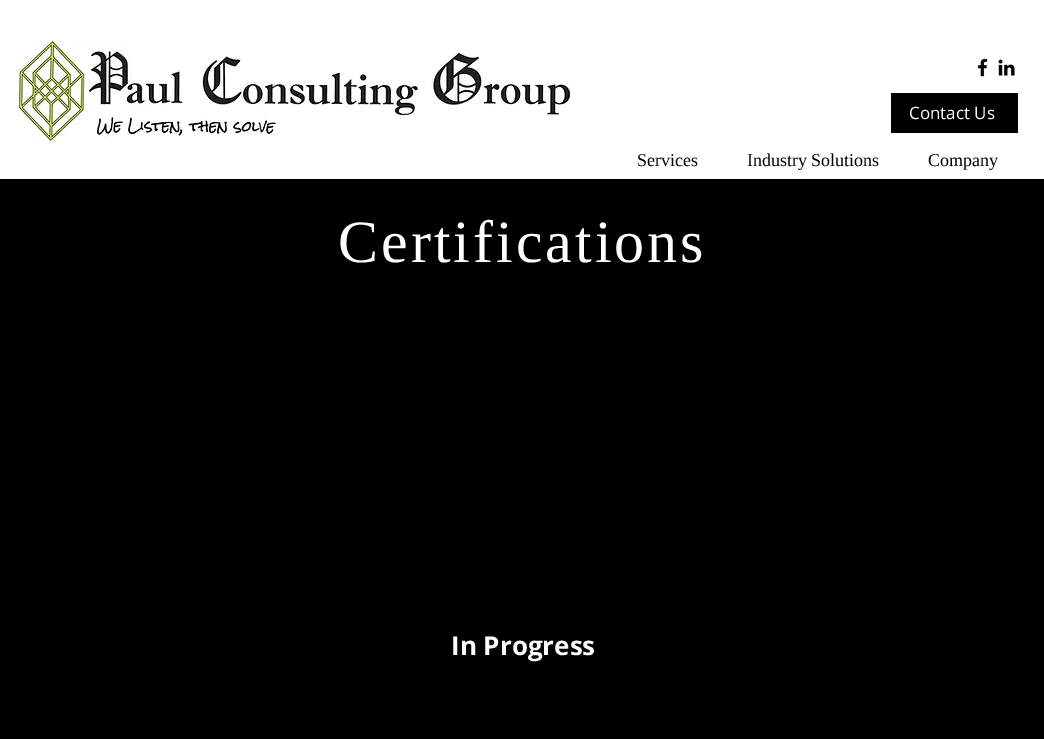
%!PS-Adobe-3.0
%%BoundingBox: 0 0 1044 739
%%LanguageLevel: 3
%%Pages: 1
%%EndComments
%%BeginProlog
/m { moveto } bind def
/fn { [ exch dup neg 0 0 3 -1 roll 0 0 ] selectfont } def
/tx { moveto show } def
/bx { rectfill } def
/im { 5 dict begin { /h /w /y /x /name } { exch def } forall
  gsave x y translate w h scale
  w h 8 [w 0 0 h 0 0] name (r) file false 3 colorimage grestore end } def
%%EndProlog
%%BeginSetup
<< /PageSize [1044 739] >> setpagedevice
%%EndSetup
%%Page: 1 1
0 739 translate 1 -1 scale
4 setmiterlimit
1 setgray
0 0 1044 739 bx
(image0.raw) 19 41 552 103 im
(image1.raw) 977 58 11 19 im
(image2.raw) 998 59 17 17 im
0 setgray
891 93 127 40 bx
/OpenSans-Regular 17 fn
1 1 0.996 setrgbcolor
(Contact Us) 909 119 tx
/LiberationSerif-Regular 18 fn
0 setgray
(Services) 637 166 tx
(Industry Solutions) 747 166 tx
(Company) 928 166 tx
0 179 1044 560 bx
/LiberationSerif-Regular 60 fn
1 1 0.996 setrgbcolor
338 262 m 3 0 (Certifications) ashow
/OpenSans-Bold 26 fn
(In Progress) 451 655 tx
showpage
%%EOF
